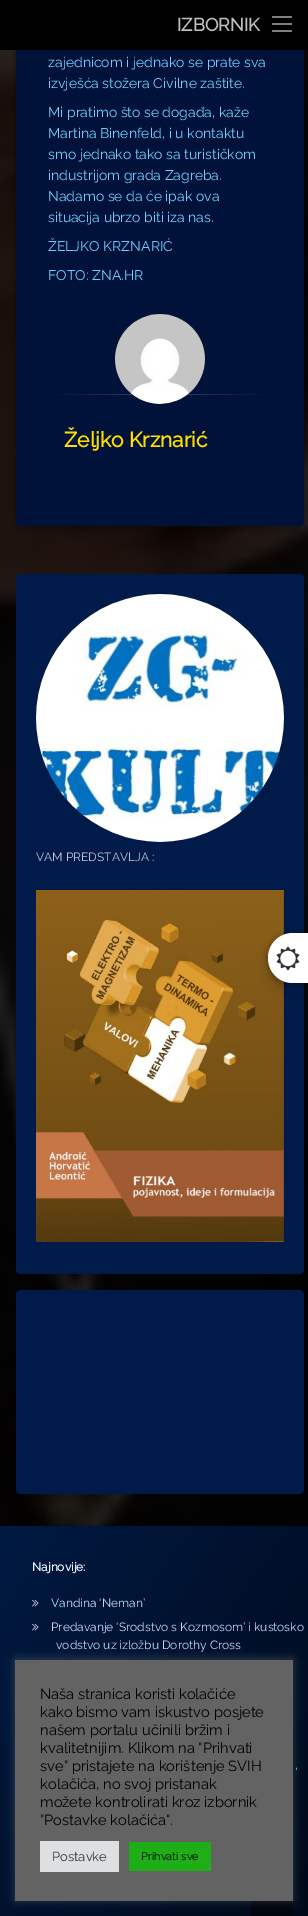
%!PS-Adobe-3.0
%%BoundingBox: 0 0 308 1916
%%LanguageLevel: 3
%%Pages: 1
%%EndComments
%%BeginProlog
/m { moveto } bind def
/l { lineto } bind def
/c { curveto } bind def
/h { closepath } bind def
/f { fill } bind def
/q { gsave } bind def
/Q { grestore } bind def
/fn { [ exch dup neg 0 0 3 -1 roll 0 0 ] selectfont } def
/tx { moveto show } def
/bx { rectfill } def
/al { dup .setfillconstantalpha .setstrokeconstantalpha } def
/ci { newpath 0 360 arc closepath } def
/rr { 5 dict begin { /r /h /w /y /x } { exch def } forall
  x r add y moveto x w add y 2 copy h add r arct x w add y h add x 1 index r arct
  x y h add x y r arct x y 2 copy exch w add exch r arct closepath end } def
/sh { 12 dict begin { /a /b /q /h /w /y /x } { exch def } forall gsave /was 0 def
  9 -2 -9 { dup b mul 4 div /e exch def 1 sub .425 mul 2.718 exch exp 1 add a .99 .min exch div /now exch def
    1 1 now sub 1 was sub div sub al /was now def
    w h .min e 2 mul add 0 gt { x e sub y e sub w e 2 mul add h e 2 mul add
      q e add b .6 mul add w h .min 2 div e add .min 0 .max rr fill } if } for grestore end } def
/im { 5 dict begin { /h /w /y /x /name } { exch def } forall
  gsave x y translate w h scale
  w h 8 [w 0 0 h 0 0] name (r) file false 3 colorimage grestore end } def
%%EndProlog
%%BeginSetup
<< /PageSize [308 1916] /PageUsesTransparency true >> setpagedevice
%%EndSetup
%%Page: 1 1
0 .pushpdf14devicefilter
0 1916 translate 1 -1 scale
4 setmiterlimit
1 setgray
0 0 308 1916 bx
(image0.raw) 0 50 308 1476 im
0 setgray
16 -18 288 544 10 2.5 0.25 sh
16 -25 288 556 10 5 0.25 sh
0 0.071 0.227 setrgbcolor
26 -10 m 294 -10 l 299.5 -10 304 -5.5 304 0 c 304 521 l 304 524 302 526 299 526 c 21 526 l 18 526 16 524 16 521 c 16 0 l 16 -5.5 20.5 -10 26 -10 c h f
0 setgray
0 0 308 50 bx
/Raleway-Bold 18 fn
0.749 setgray
(IZBORNIK) 177 31 tx
0.502 setgray
272 16 20 2 1 rr f
272 23 20 2 1 rr f
272 30 20 2 1 rr f
/Raleway-Thin 14 fn
0.439 0.804 1 setrgbcolor
(zajednicom i jednako se prate sva) 48 67 tx
(izvješća stožera Civilne zaštite.) 48 88 tx
(Mi pratimo što se događa, kaže) 48 117 tx
(Martina Binenfeld, i u kontaktu) 48 138 tx
(smo jednako tako sa turističkom) 48 159 tx
(industrijom grada Zagreba.) 48 180 tx
(Nadamo se da će ipak ova) 48 201 tx
(situacija ubrzo biti iza nas.) 48 222 tx
(ŽELJKO KRZNARIĆ) 48 251 tx
(FOTO: ZNA.HR) 48 280 tx
q 48 394 m 272 394 l 272 395 l 48 395 l h clip newpath
<< /ShadingType 2 /ColorSpace /DeviceRGB /Coords [48 395 272 395] /Extend [true true] /Function << /FunctionType 3 /Domain [0 1] /Functions [<< /FunctionType 2 /Domain [0 1] /C0 [0 0.071 0.227] /C1 [0.133 0.29 0.459] /N 1 >> << /FunctionType 2 /Domain [0 1] /C0 [0.133 0.29 0.459] /C1 [0 0.071 0.227] /N 1 >>] /Bounds [0.5] /Encode [0 1 0 1] >> >> shfill Q
0 setgray
160 359 45 ci f
(image1.raw) 115 314 90 90 im
/Raleway-Bold 21 fn
1 0.867 0 setrgbcolor
(Željko Krznarić) 64 447 tx
0 0.102 0.29 setrgbcolor
16 574 288 700 5 rr f
(image2.raw) 36 594 248 248 im
/Raleway-Thin 12 fn
0.749 0.776 0.824 setrgbcolor
(VAM PREDSTAVLJA :) 36 861 tx
(image3.raw) 36 890 248 352 im
0 0.102 0.29 setrgbcolor
16 1290 288 204 5 rr f
0 setgray
0 1526 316 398 0 2.5 0.25 sh
q 0 1526 m 308 1526 l 308 1916 l 0 1916 l h clip newpath
<< /ShadingType 2 /ColorSpace /DeviceRGB /Coords [-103 1673 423 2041] /Extend [true true] /Function << /FunctionType 2 /Domain [0 1] /C0 [0 0.102 0.259] /C1 [0 0.012 0.039] /N 1 >> >> shfill Q
/Raleway-Bold 12 fn
0.922 0.949 1 setrgbcolor
(Najnovije:) 32 1571 tx
(image4.raw) 32 1599 7 8 im
/Raleway-Thin 12 fn
0.741 0.859 1 setrgbcolor
(Vandina ‘Neman’) 51 1607 tx
(image5.raw) 32 1623 7 8 im
(Predavanje ‘Srodstvo s Kozmosom’ i kustosko) 51 1631 tx
(vodstvo uz izložbu Dorothy Cross) 56 1649 tx
(,) 295 1769 tx
0 setgray
268 933 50 50 25 2.5 0.25 sh
268 938 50 50 25 5 0.25 sh
1 setgray
293 933 m 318 933 l 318 983 l 293 983 l 279 983 268 972 268 958 c 268 944 279 933 293 933 c h f
(image6.raw) 276 946 24 25 im
0.75 al
0 0.012 0.039 setrgbcolor
251 1901 41 15 bx
1 al
0.675 0.671 0.671 setrgbcolor
15 1659 278 241 0 5 0.3 sh
0.388 setgray
15 1660 278 241 bx
/Raleway-Thin 14.7 fn
0 setgray
(Naša stranica koristi kolačiće) 40 1699 tx
(kako bismo vam iskustvo posjete) 40 1717 tx
(našem portalu učinili bržim i) 40 1735 tx
(kvalitetnijim. Klikom na "Prihvati) 40 1753 tx
(sve" pristajete na korištenje SVIH) 40 1771 tx
(kolačića, no svoj pristanak) 40 1789 tx
(možete kontrolirati kroz izbornik) 40 1807 tx
("Postavke kolačića".) 40 1825 tx
0.871 0.875 0.878 setrgbcolor
40 1841 79 31 bx
/Raleway-Thin 13 fn
0.2 setgray
(Postavke) 52 1861 tx
0.122 0.678 0.094 setrgbcolor
129 1842 82 29 bx
/Raleway-Thin 11 fn
0 setgray
(Prihvati sve) 141 1860 tx
.poppdf14devicefilter showpage
%%EOF
